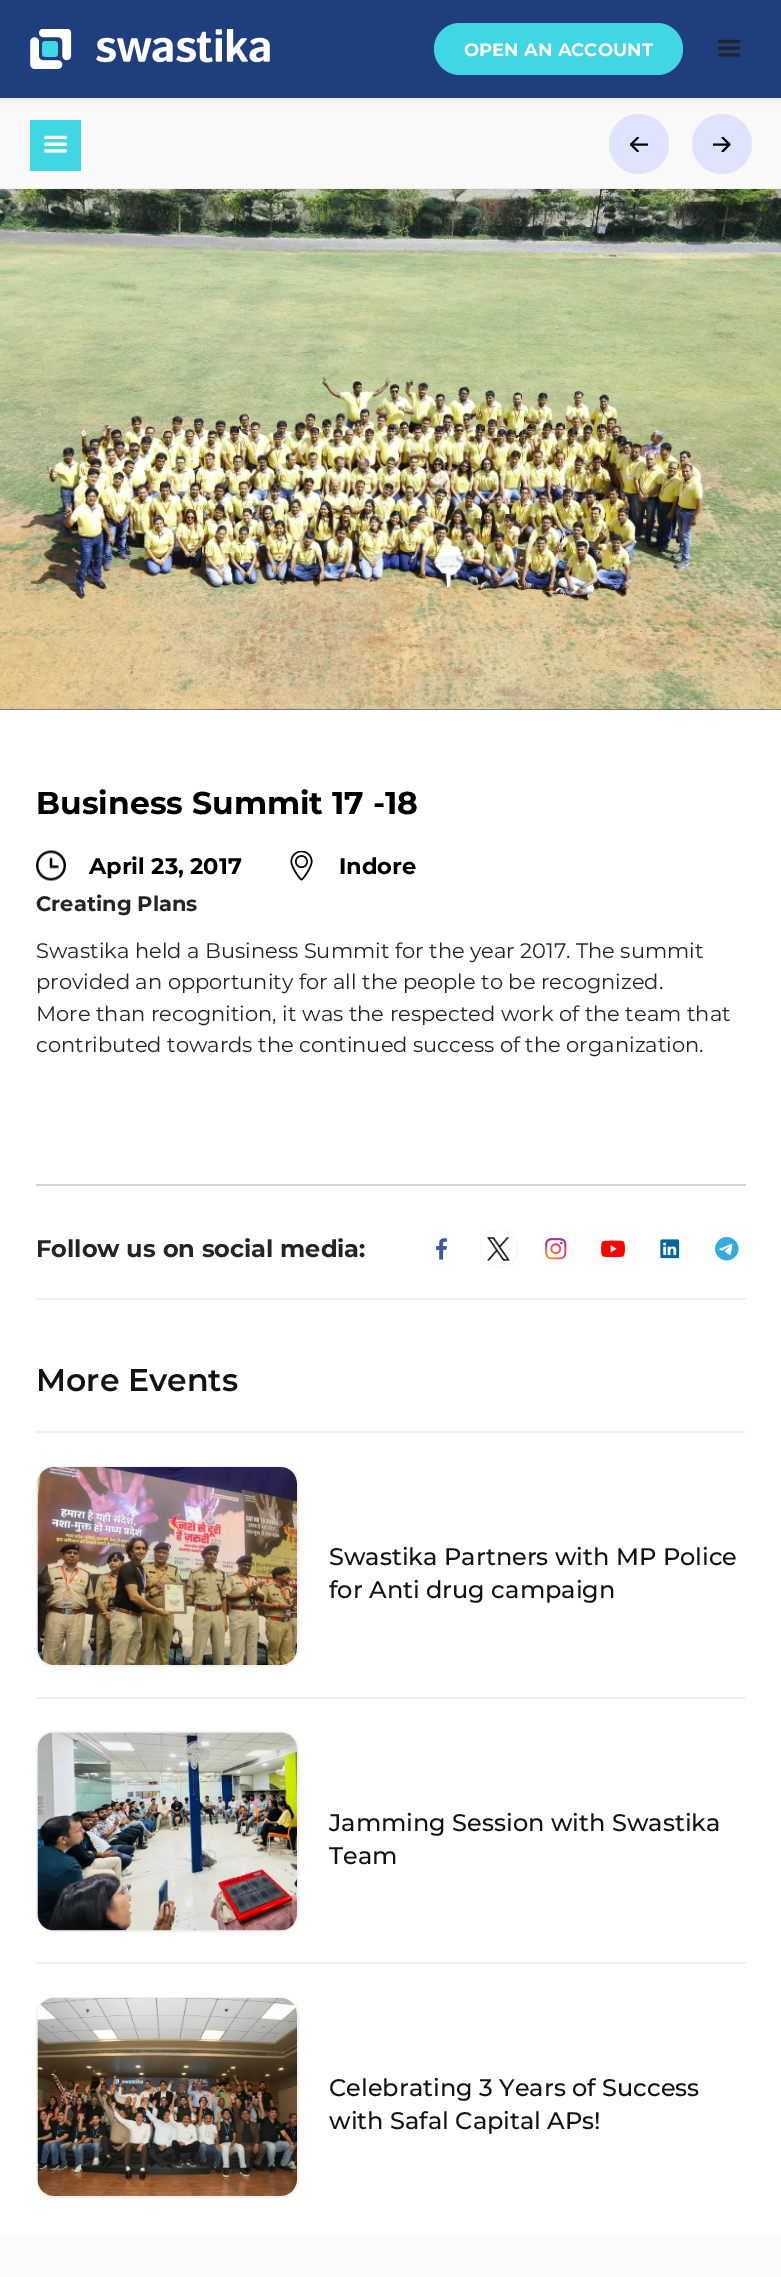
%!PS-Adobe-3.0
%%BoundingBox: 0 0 781 2277
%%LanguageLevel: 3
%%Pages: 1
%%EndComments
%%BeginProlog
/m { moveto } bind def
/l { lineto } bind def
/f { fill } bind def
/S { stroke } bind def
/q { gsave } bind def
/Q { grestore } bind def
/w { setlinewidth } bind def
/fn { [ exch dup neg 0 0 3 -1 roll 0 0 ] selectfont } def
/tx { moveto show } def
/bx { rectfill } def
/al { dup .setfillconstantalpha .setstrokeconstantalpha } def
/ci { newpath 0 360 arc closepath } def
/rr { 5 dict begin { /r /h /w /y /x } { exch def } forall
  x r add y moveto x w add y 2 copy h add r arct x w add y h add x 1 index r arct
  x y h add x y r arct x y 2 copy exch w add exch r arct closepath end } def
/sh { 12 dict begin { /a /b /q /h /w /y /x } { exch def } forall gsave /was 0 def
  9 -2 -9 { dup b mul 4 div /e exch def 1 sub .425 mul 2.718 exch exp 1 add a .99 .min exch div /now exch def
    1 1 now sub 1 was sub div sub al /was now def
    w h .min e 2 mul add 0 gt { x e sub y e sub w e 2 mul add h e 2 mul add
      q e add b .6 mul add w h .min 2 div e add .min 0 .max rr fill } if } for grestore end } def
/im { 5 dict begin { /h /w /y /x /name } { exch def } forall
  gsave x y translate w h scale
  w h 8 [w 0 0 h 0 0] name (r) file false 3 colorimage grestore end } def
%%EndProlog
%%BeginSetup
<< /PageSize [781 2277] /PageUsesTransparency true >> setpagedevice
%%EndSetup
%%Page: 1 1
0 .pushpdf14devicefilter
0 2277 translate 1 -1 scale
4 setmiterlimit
1 setgray
0 0 781 2277 bx
0.976 setgray
0 98 781 90 bx
0 setgray
0 0 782 98 0 4.5 0.1 sh
0.122 0.243 0.49 setrgbcolor
0 0 781 98 bx
(image0.raw) 30 29 240 40 im
0.251 0.839 0.89 setrgbcolor
434 23 249 52 26 rr f
/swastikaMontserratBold-Bold 18 fn
1 setgray
(OPEN AN ACCOUNT) 464 56 tx
(image1.raw) 717 39 24 18 im
0.937 setgray
0 188 781 1 bx
0.251 0.839 0.89 setrgbcolor
30 120 51 51 bx
(image2.raw) 44 135 23 18 im
0.871 0.89 1 setrgbcolor
639 144 30 ci f
q
630 137 18 15 rectclip
0 setgray
2 w
1 setlinecap
1 setlinejoin
638 137.5 m 631 144.5 l 638 151.5 l S
Q
0 setgray
2 w
1 setlinecap
1 setlinejoin
631 144.5 m 647 144.5 l S
0.871 0.89 1 setrgbcolor
722 144 30 ci f
q
713 137 18 15 rectclip
0 setgray
722.5 151.5 m 729.5 144.5 l 722.5 137.5 l 729.5 144.5 m 713.5 144.5 l S
Q
0.122 0.243 0.49 setrgbcolor
0 709 781 1 bx
(image3.raw) 0 189 781 521 im
/swastikaMontserratBold-Bold 31.5 fn
0 setgray
(Business Summit 17 -18) 36 814 tx
(image4.raw) 36 850 30 31 im
/swastikaMontserratBold-Bold 22.5 fn
(April 23, 2017) 89 874 tx
(image5.raw) 290 851 23 30 im
(Indore) 339 874 tx
/swastikaMontserratBold-Bold 21 fn
0.129 0.145 0.161 setrgbcolor
(Creating Plans) 36 911 tx
/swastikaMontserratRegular-Regular 21 fn
(Swastika held a Business Summit for the year 2017. The summit) 36 958 tx
(provided an opportunity for all the people to be recognized.) 36 989 tx
(More than recognition, it was the respected work of the team that) 36 1021 tx
(contributed towards the continued success of the organization.) 36 1052 tx
0.835 setgray
36 1184 710 2 bx
/swastikaMontserratBold-Bold 24 fn
0.129 0.145 0.161 setrgbcolor
(Follow us on social media:) 36 1257 tx
(image6.raw) 435 1238 12 22 im
(image7.raw) 480 1230 38 38 im
(image8.raw) 545 1238 22 22 im
(image9.raw) 601 1240 24 18 im
(image10.raw) 660 1239 20 20 im
(image11.raw) 715 1237 24 24 im
0.941 setgray
36 1298 710 2 bx
/Montserrat-SemiBold 31.5 fn
0.075 setgray
(More Events) 36 1391 tx
0.941 setgray
36 1431 710 2 bx
0.945 setgray
0 setlinecap
0 setlinejoin
37 1467 261 199 17 rr S
(image12.raw) 37 1467 260 198 im
/Montserrat-Medium 24 fn
0.075 setgray
(Swastika Partners with MP Police) 329 1565 tx
(for Anti drug campaign) 329 1598 tx
0.941 setgray
36 1697 710 2 bx
0.945 setgray
37 1732 261 199 17 rr S
(image13.raw) 37 1732 260 199 im
0.075 setgray
(Jamming Session with Swastika) 329 1831 tx
(Team) 329 1864 tx
0.941 setgray
36 1962 710 2 bx
0.945 setgray
37 1998 261 199 17 rr S
(image14.raw) 37 1998 260 198 im
0.075 setgray
(Celebrating 3 Years of Success) 329 2096 tx
(with Safal Capital APs!) 329 2129 tx
0.984 setgray
0 2235 781 42 bx
.poppdf14devicefilter showpage
%%EOF
